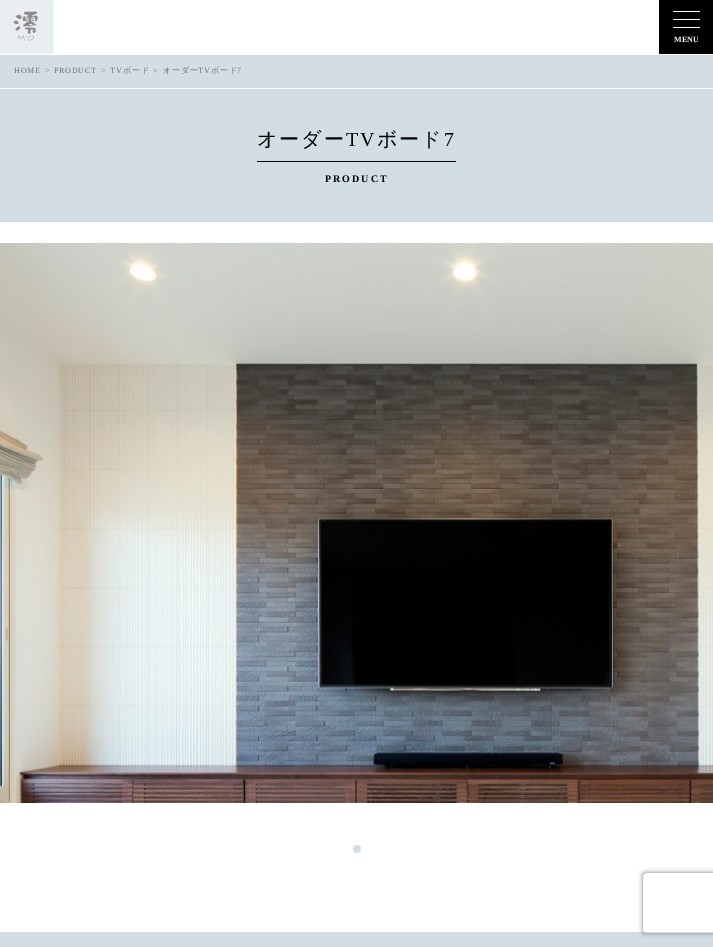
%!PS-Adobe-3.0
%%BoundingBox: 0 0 713 947
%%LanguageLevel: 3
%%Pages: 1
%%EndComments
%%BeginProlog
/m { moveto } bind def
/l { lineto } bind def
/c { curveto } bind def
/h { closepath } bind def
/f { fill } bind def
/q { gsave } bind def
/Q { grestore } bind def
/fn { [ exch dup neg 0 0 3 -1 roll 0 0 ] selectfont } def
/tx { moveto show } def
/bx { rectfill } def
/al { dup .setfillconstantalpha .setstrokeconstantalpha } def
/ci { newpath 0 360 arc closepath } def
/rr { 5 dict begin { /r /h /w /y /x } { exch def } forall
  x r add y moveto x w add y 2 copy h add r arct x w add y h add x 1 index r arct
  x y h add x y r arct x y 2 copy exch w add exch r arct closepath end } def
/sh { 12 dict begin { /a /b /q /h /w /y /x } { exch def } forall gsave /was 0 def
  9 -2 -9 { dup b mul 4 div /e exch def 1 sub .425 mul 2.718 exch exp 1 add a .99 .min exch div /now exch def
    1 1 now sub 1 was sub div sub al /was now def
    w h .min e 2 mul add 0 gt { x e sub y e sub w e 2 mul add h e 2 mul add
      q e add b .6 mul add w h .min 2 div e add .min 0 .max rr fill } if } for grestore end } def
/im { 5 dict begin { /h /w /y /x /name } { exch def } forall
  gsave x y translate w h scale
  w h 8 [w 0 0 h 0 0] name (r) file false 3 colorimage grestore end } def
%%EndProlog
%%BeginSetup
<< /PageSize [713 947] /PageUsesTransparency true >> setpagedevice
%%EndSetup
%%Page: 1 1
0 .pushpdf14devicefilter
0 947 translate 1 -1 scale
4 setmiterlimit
1 setgray
0 0 713 947 bx
(image0.raw) 0 0 54 54 im
0 setgray
659 0 54 54 bx
1 setgray
673 11 27 1 bx
673 19 27 1 bx
673 27 27 1 bx
/LiberationSerif-Bold 8 fn
(MENU) 674 42 tx
0.824 0.867 0.894 setrgbcolor
0 55 713 167 bx
1 setgray
0 88 713 1 bx
/LiberationSerif-Regular 8 fn
0.443 0.439 0.443 setrgbcolor
14 73 m 0.75 0 (HOME) ashow
45 73 m 0.75 0 (>) ashow
54 73 m 0.75 0 (PRODUCT) ashow
101 73 m 0.75 0 (>) ashow
110 73 m 0.75 0 (TV) ashow
/WenQuanYiZenHei-Medium 8 fn
123 73 m 0.75 0 (ボード) ashow
/LiberationSerif-Regular 8 fn
153 73 m 0.75 0 (>) ashow
/WenQuanYiZenHei-Medium 8 fn
163 73 m 0.75 0 (オーダー) ashow
/LiberationSerif-Regular 8 fn
198 73 m 0.75 0 (TV) ashow
/WenQuanYiZenHei-Medium 8 fn
211 73 m 0.75 0 (ボード) ashow
/LiberationSerif-Regular 8 fn
237 73 m 0.75 0 (7) ashow
0 setgray
257 161 199 1 bx
/WenQuanYiZenHei-Medium 20 fn
257 146 m 2 0 (オーダー) ashow
/LiberationSerif-Regular 20 fn
346 146 m 2 0 (TV) ashow
/WenQuanYiZenHei-Medium 20 fn
377 146 m 2 0 (ボード) ashow
/LiberationSerif-Regular 20 fn
444 146 m 2 0 (7) ashow
/LiberationSerif-Bold 10 fn
325 182 m 2 0 (PRODUCT) ashow
(image1.raw) 0 243 713 560 im
0.824 0.867 0.894 setrgbcolor
357 849 4 ci f
0 932 713 15 bx
q
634 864 m 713 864 l 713 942 l 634 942 l h 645 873 m 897 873 l 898 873 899 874 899 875 c 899 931 l 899 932 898 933 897 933 c 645 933 l 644 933 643 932 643 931 c 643 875 l 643 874 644 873 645 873 c h eoclip newpath
0.502 setgray
643 873 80 60 2 2.5 1 sh
Q
.poppdf14devicefilter showpage
%%EOF
